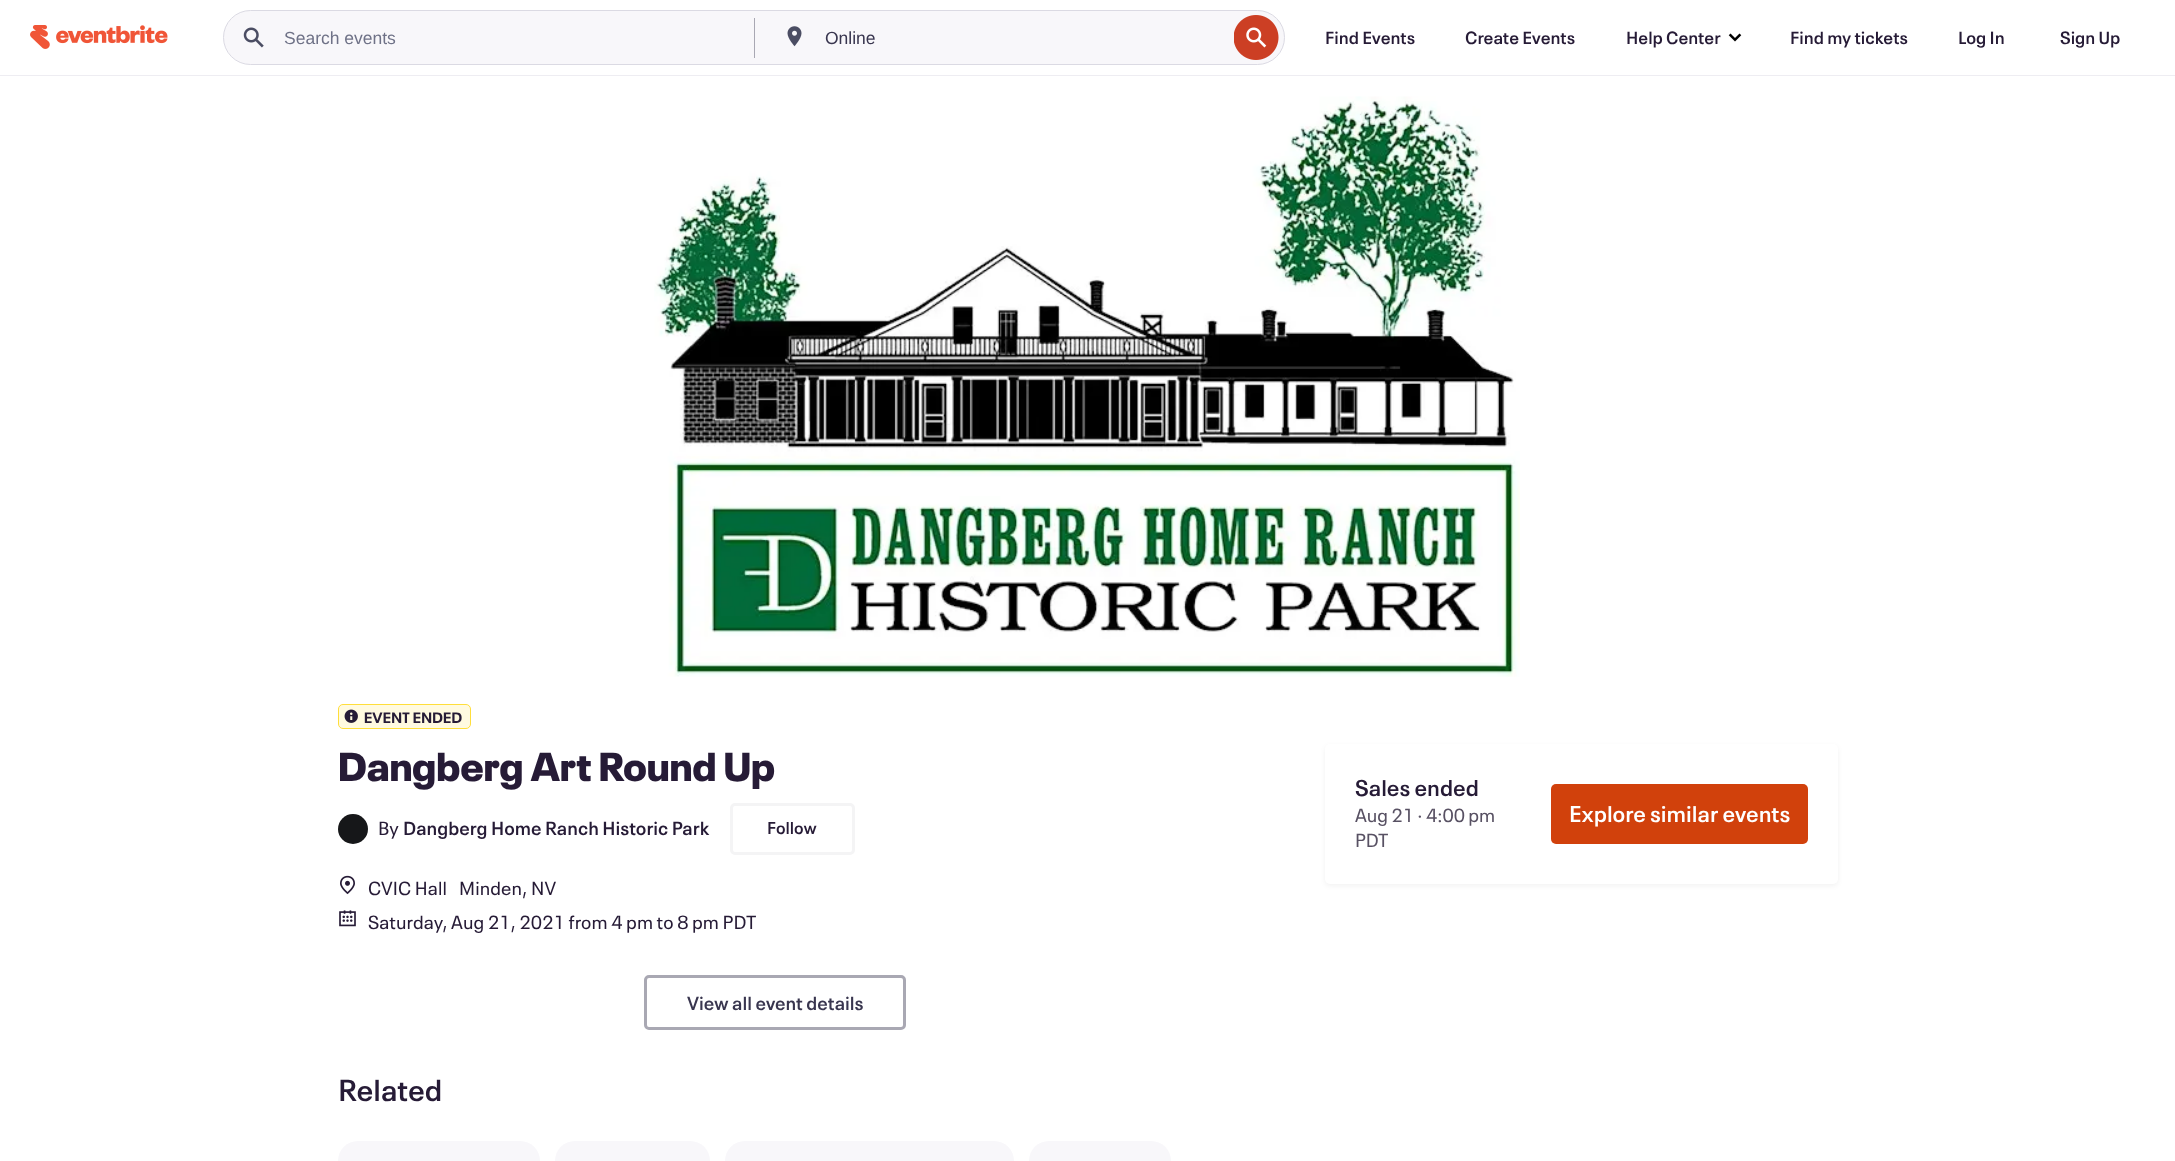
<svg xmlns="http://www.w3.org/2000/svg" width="2175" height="1161">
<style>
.a{font:17.5px Liberation Sans;fill:#6f7287}
.b{font:17.5px Liberation Sans;fill:#39364f}
.c{font:600 17.5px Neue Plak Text;fill:#261b36}
.d{font:bold 15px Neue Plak;letter-spacing:0.25px;fill:#261b36}
.e{font:900 40px Neue Plak;fill:#261b36}
.f{font:18.75px Neue Plak Text;fill:#261b36}
.g{font:600 18.75px Neue Plak Text;fill:#261b36}
.h{font:600 17px Neue Plak Text;fill:#261b36}
.i{font:18.75px Neue Plak Text;letter-spacing:0.1px;fill:#261b36}
.j{font:600 18.75px Neue Plak Text;fill:#39364f}
.k{font:600 30px Neue Plak Text;fill:#261b36}
.l{font:600 22.5px Neue Plak Text;fill:#261b36}
.m{font:18.75px Neue Plak Text;fill:#585163}
.n{font:600 22.5px Neue Plak Text;fill:#fff}
</style>
<rect width="100%" height="100%" fill="#fff"/>
<path fill="#eeedf2" d="M0 75h2175v1H0z"/>
<image href="1.png" x="30" y="25" width="138" height="24"/>
<rect fill="#f8f7fa" stroke="#dbdae3" x="223.5" y="10.5" width="1061" height="54" rx="27"/>
<image href="2.png" x="243" y="27" width="21" height="21"/>
<path fill="#a9a8b3" d="M754 18h1v40H754z"/>
<image href="3.png" x="787" y="26" width="15" height="21"/>
<image href="4.png" x="1234" y="15" width="45" height="45"/>
<image href="5.png" x="1728" y="33" width="14" height="9"/>
<image href="6.png" x="654" y="96" width="866" height="581"/>
<rect fill="#fffae0" stroke="#ffde3b" x="338.5" y="704.5" width="132" height="24" rx="4.5"/>
<image href="7.png" x="344" y="709" width="14" height="14"/>
<circle fill="#161719" cx="353" cy="829" r="15"/>
<rect fill="none" stroke="#f4f4f5" stroke-width="3" x="731.5" y="804.5" width="122" height="49" rx="3.5"/>
<image href="8.png" x="340" y="875" width="15" height="20"/>
<image href="9.png" x="339" y="910" width="17" height="17"/>
<rect fill="none" stroke="#a9a8b3" stroke-width="3" x="645.5" y="976.5" width="259" height="52" rx="3.5"/>
<rect fill="#f8f7fa" x="338" y="1141" width="202" height="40" rx="20"/>
<rect fill="#f8f7fa" x="555" y="1141" width="155" height="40" rx="20"/>
<rect fill="#f8f7fa" x="725" y="1141" width="289" height="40" rx="20"/>
<rect fill="#f8f7fa" x="1029" y="1141" width="142" height="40" rx="20"/>
<rect fill="#0000000d" filter="blur(2.5px)" x="1325" y="746" width="513" height="140" rx="5"/>
<rect fill="#fff" x="1325" y="744" width="513" height="140" rx="5"/>
<rect fill="#d1410c" x="1551" y="784" width="257" height="60" rx="5"/>
<text class="a" x="284" y="44">Search events</text>
<text class="b" x="825" y="44">Online</text>
<text class="c" x="1325" y="44">Find Events</text>
<text class="c" x="1465" y="44">Create Events</text>
<text class="c" x="1626" y="44">Help Center</text>
<text class="c" x="1790" y="44">Find my tickets</text>
<text class="c" x="1958" y="44">Log In</text>
<text class="c" x="2060" y="44">Sign Up</text>
<text class="d" x="364" y="723">EVENT ENDED</text>
<text class="e" x="338" y="781">Dangberg Art Round Up</text>
<text class="f" x="378" y="835">By</text>
<text class="g" x="403" y="835">Dangberg Home Ranch Historic Park</text>
<text class="h" x="767" y="834">Follow</text>
<text class="i" x="368" y="895">CVIC Hall</text>
<text class="i" x="459" y="895">Minden, NV</text>
<text class="i" x="368" y="929">Saturday, Aug 21, 2021 from 4 pm to 8 pm PDT</text>
<text class="j" x="687" y="1010">View all event details</text>
<text class="k" x="338" y="1101">Related</text>
<text class="l" x="1355" y="796">Sales ended</text>
<text class="m" x="1355" y="822">Aug 21 · 4:00 pm</text>
<text class="m" x="1355" y="847">PDT</text>
<text class="n" x="1569" y="822">Explore similar events</text>
</svg>
